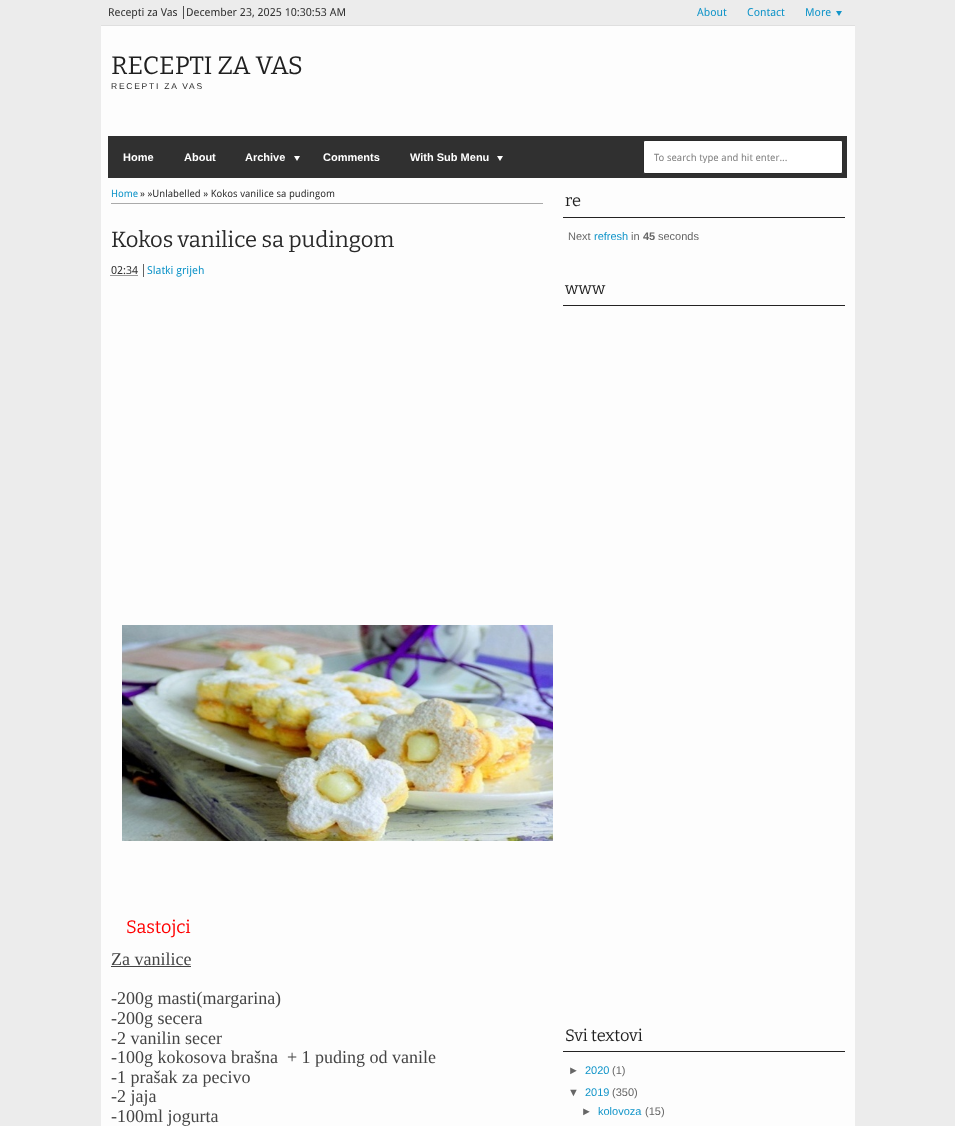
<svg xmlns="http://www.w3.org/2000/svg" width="955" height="1126">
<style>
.a{font:11px Droid Sans;fill:#333}
.b{font:11px Droid Sans;fill:#1295c9}
.c{font:100 25.25px Bitter;fill:#1f1f1f}
.d{font:8.5px Liberation Sans;letter-spacing:1.75px;fill:#292929}
.e{font:bold 11px Liberation Sans;fill:#fff}
.f{font:10px Droid Sans;fill:#838383}
.g{font:10px Droid Sans;fill:#1295c9}
.h{font:10px Droid Sans;fill:#333}
.i{font:100 22px Bitter;fill:#292929}
.j{font:100 18px Bitter;fill:#f00}
.k{font:18px Liberation Serif;fill:#444}
.l{font:100 16.5px Bitter;fill:#1f1f1f}
.m{font:11px Liberation Sans;fill:#666}
.n{font:11px Liberation Sans;fill:#1295c9}
.o{font:bold 11px Liberation Sans;fill:#666}
</style>
<defs>
<clipPath id="clip1"><path d="M654 152h186v11H654z"/></clipPath>
</defs>
<rect width="100%" height="100%" fill="#ececec"/>
<path fill="#fdfdfd" d="M101 26h754v1100H101z"/>
<path fill="#dfdfdf" d="M101 25h754v1H101z"/>
<path fill="#4d4d4d" d="M183 6h1v13H183z"/>
<path fill="#1295c9" d="M836 11h6l-3 5z"/>
<path fill="#303030" d="M108 136h739v42H108z"/>
<path fill="#fff" d="M294 156h6l-3 5z"/>
<path fill="#fff" d="M497 156h6l-3 5z"/>
<rect fill="#fff" stroke="#2b2b2b" x="643.5" y="140.5" width="199" height="33" rx="1.5"/>
<path fill="#aaa" d="M111 203h432v1H111z"/>
<path fill="none" stroke="#333" stroke-dasharray="1 1" d="M110.5 275.5h27"/>
<path fill="#636363" d="M143 264h1v13H143z"/>
<image href="1.png" x="122" y="625" width="431" height="216"/>
<path fill="#444" d="M111 966h80v1H111z"/>
<path fill="#242323" d="M563 217h282v1H563z"/>
<path fill="#242323" d="M563 305h282v1H563z"/>
<path fill="#242323" d="M563 1051h282v1H563z"/>
<text class="a" x="108" y="16">Recepti za Vas</text>
<text class="a" x="186" y="16">December 23, 2025 10:30:53 AM</text>
<text class="b" x="697" y="16">About</text>
<text class="b" x="747" y="16">Contact</text>
<text class="b" x="805" y="16">More</text>
<text class="c" x="111" y="74">RECEPTI ZA VAS</text>
<text class="d" x="111" y="89">RECEPTI ZA VAS</text>
<text class="e" x="123" y="161">Home</text>
<text class="e" x="184" y="161">About</text>
<text class="e" x="245" y="161">Archive</text>
<text class="e" x="323" y="161">Comments</text>
<text class="e" x="410" y="161">With Sub Menu</text>
<g clip-path="url(#clip1)">
<text class="f" x="654" y="161">To search type and hit enter...</text>
</g>
<text class="g" x="111" y="197">Home</text>
<text class="h" x="140" y="197">» »Unlabelled » Kokos vanilice sa pudingom</text>
<text class="i" x="111" y="247">Kokos vanilice sa pudingom</text>
<text class="a" x="111" y="274">02:34</text>
<text class="b" x="147" y="274">Slatki grijeh</text>
<text class="j" x="126" y="933">Sastojci</text>
<text class="k" x="111" y="965">Za vanilice</text>
<text class="k" x="111" y="1004">-200g masti(margarina)</text>
<text class="k" x="111" y="1024">-200g secera</text>
<text class="k" x="111" y="1044">-2 vanilin secer</text>
<text class="k" xml:space="preserve" x="111" y="1063">-100g kokosova brašna  + 1 puding od vanile</text>
<text class="k" x="111" y="1083">-1 prašak za pecivo</text>
<text class="k" x="111" y="1102">-2 jaja</text>
<text class="k" x="111" y="1122">-100ml jogurta</text>
<text class="l" x="565" y="206">re</text>
<text class="m" x="568" y="240">Next</text>
<text class="n" x="594" y="240">refresh</text>
<text class="m" x="631" y="240">in</text>
<text class="o" x="643" y="240">45</text>
<text class="m" x="658" y="240">seconds</text>
<text class="l" x="565" y="294">www</text>
<text class="l" x="565" y="1041">Svi textovi</text>
<text class="m" x="568" y="1074">►</text>
<text class="n" x="585" y="1074">2020</text>
<text class="m" x="612" y="1074">(1)</text>
<text class="m" x="568" y="1096">▼</text>
<text class="n" x="585" y="1096">2019</text>
<text class="m" x="612" y="1096">(350)</text>
<text class="m" x="581" y="1115">►</text>
<text class="n" x="598" y="1115">kolovoza</text>
<text class="m" x="645" y="1115">(15)</text>
</svg>
